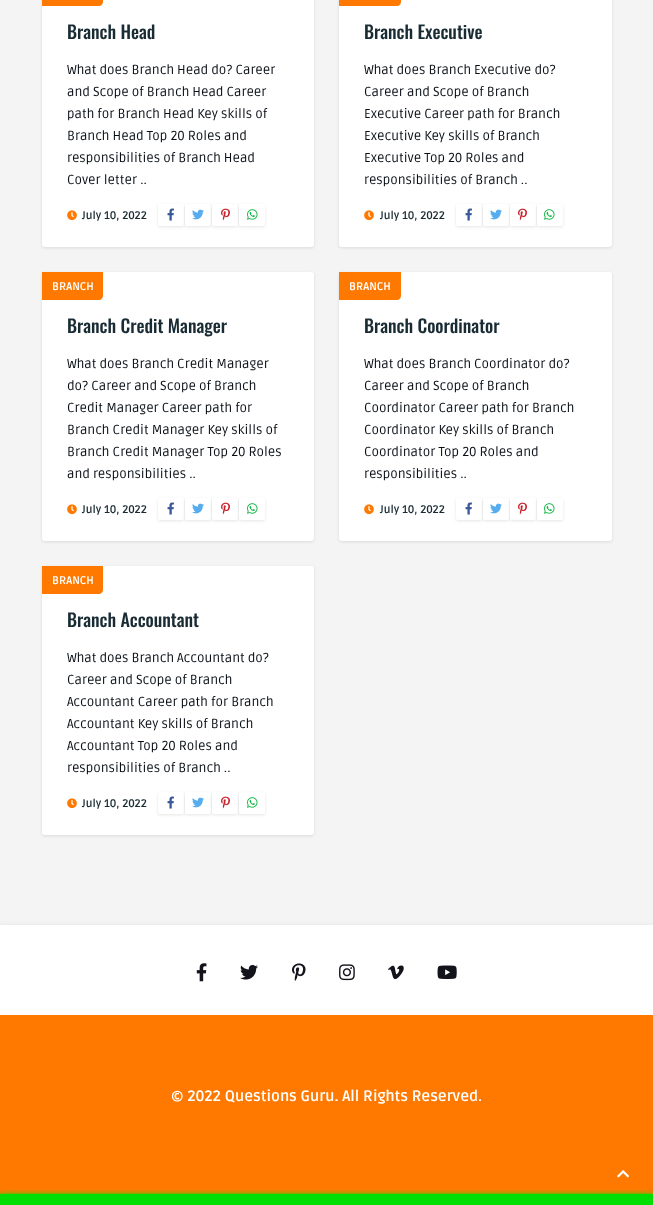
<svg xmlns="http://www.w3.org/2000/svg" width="653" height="1205">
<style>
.a{font:500 18px Oswald;fill:#192b33}
.b{font:13px Ruda;fill:#080e14}
.c{font:bold 11px Ruda;fill:#192b33}
.d{font:bold 11px Ruda;fill:#fff}
.e{font:bold 15px Ruda;fill:#fff}
</style>
<rect width="100%" height="100%" fill="#f4f4f4"/>
<rect fill="#0000001a" filter="blur(1.5px)" x="42" y="-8" width="272" height="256" rx="3"/>
<rect fill="#fff" x="42" y="-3" width="272" height="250" rx="3"/>
<path fill="#ff7900" d="M42-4h61v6c0 2-2 4-4 4h-57z"/>
<image href="1.png" x="67" y="210" width="10" height="11"/>
<rect fill="#0000001a" filter="blur(1.5px)" x="158" y="205" width="26" height="22" rx="2"/>
<rect fill="#fff" x="158" y="204" width="26" height="22" rx="2"/>
<image href="2.png" x="167" y="208" width="7" height="13"/>
<rect fill="#0000001a" filter="blur(1.5px)" x="185" y="205" width="26" height="22" rx="2"/>
<rect fill="#fff" x="185" y="204" width="26" height="22" rx="2"/>
<image href="3.png" x="192" y="209" width="12" height="11"/>
<rect fill="#0000001a" filter="blur(1.5px)" x="212" y="205" width="26" height="22" rx="2"/>
<rect fill="#fff" x="212" y="204" width="26" height="22" rx="2"/>
<image href="4.png" x="221" y="208" width="9" height="13"/>
<rect fill="#0000001a" filter="blur(1.5px)" x="239" y="205" width="26" height="22" rx="2"/>
<rect fill="#fff" x="239" y="204" width="26" height="22" rx="2"/>
<image href="5.png" x="247" y="209" width="11" height="11"/>
<rect fill="#0000001a" filter="blur(1.5px)" x="339" y="-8" width="273" height="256" rx="3"/>
<rect fill="#fff" x="339" y="-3" width="273" height="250" rx="3"/>
<path fill="#ff7900" d="M339-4h62v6c0 2-2 4-4 4h-58z"/>
<image href="1.png" x="364" y="210" width="10" height="11"/>
<rect fill="#0000001a" filter="blur(1.5px)" x="456" y="205" width="26" height="22" rx="2"/>
<rect fill="#fff" x="456" y="204" width="26" height="22" rx="2"/>
<image href="2.png" x="465" y="208" width="7" height="13"/>
<rect fill="#0000001a" filter="blur(1.5px)" x="483" y="205" width="26" height="22" rx="2"/>
<rect fill="#fff" x="483" y="204" width="26" height="22" rx="2"/>
<image href="3.png" x="490" y="209" width="12" height="11"/>
<rect fill="#0000001a" filter="blur(1.5px)" x="510" y="205" width="26" height="22" rx="2"/>
<rect fill="#fff" x="510" y="204" width="26" height="22" rx="2"/>
<image href="4.png" x="518" y="208" width="9" height="13"/>
<rect fill="#0000001a" filter="blur(1.5px)" x="537" y="205" width="26" height="22" rx="2"/>
<rect fill="#fff" x="537" y="204" width="26" height="22" rx="2"/>
<image href="5.png" x="544" y="209" width="11" height="11"/>
<rect fill="#0000001a" filter="blur(1.5px)" x="42" y="273" width="272" height="269" rx="3"/>
<rect fill="#fff" x="42" y="272" width="272" height="269" rx="3"/>
<path fill="#ff7900" d="M42 272h61v24c0 2-2 4-4 4h-57z"/>
<image href="1.png" x="67" y="504" width="10" height="11"/>
<rect fill="#0000001a" filter="blur(1.5px)" x="158" y="499" width="26" height="22" rx="2"/>
<rect fill="#fff" x="158" y="498" width="26" height="22" rx="2"/>
<image href="2.png" x="167" y="502" width="7" height="13"/>
<rect fill="#0000001a" filter="blur(1.5px)" x="185" y="499" width="26" height="22" rx="2"/>
<rect fill="#fff" x="185" y="498" width="26" height="22" rx="2"/>
<image href="3.png" x="192" y="503" width="12" height="11"/>
<rect fill="#0000001a" filter="blur(1.5px)" x="212" y="499" width="26" height="22" rx="2"/>
<rect fill="#fff" x="212" y="498" width="26" height="22" rx="2"/>
<image href="4.png" x="221" y="502" width="9" height="13"/>
<rect fill="#0000001a" filter="blur(1.5px)" x="239" y="499" width="26" height="22" rx="2"/>
<rect fill="#fff" x="239" y="498" width="26" height="22" rx="2"/>
<image href="5.png" x="247" y="503" width="11" height="11"/>
<rect fill="#0000001a" filter="blur(1.5px)" x="339" y="273" width="273" height="269" rx="3"/>
<rect fill="#fff" x="339" y="272" width="273" height="269" rx="3"/>
<path fill="#ff7900" d="M339 272h62v24c0 2-2 4-4 4h-58z"/>
<image href="1.png" x="364" y="504" width="10" height="11"/>
<rect fill="#0000001a" filter="blur(1.5px)" x="456" y="499" width="26" height="22" rx="2"/>
<rect fill="#fff" x="456" y="498" width="26" height="22" rx="2"/>
<image href="2.png" x="465" y="502" width="7" height="13"/>
<rect fill="#0000001a" filter="blur(1.5px)" x="483" y="499" width="26" height="22" rx="2"/>
<rect fill="#fff" x="483" y="498" width="26" height="22" rx="2"/>
<image href="3.png" x="490" y="503" width="12" height="11"/>
<rect fill="#0000001a" filter="blur(1.5px)" x="510" y="499" width="26" height="22" rx="2"/>
<rect fill="#fff" x="510" y="498" width="26" height="22" rx="2"/>
<image href="4.png" x="518" y="502" width="9" height="13"/>
<rect fill="#0000001a" filter="blur(1.5px)" x="537" y="499" width="26" height="22" rx="2"/>
<rect fill="#fff" x="537" y="498" width="26" height="22" rx="2"/>
<image href="5.png" x="544" y="503" width="11" height="11"/>
<rect fill="#0000001a" filter="blur(1.5px)" x="42" y="567" width="272" height="269" rx="3"/>
<rect fill="#fff" x="42" y="566" width="272" height="269" rx="3"/>
<path fill="#ff7900" d="M42 566h61v24c0 2-2 4-4 4h-57z"/>
<image href="1.png" x="67" y="798" width="10" height="11"/>
<rect fill="#0000001a" filter="blur(1.5px)" x="158" y="793" width="26" height="22" rx="2"/>
<rect fill="#fff" x="158" y="792" width="26" height="22" rx="2"/>
<image href="2.png" x="167" y="796" width="7" height="13"/>
<rect fill="#0000001a" filter="blur(1.5px)" x="185" y="793" width="26" height="22" rx="2"/>
<rect fill="#fff" x="185" y="792" width="26" height="22" rx="2"/>
<image href="3.png" x="192" y="797" width="12" height="11"/>
<rect fill="#0000001a" filter="blur(1.5px)" x="212" y="793" width="26" height="22" rx="2"/>
<rect fill="#fff" x="212" y="792" width="26" height="22" rx="2"/>
<image href="4.png" x="221" y="796" width="9" height="13"/>
<rect fill="#0000001a" filter="blur(1.5px)" x="239" y="793" width="26" height="22" rx="2"/>
<rect fill="#fff" x="239" y="792" width="26" height="22" rx="2"/>
<image href="5.png" x="247" y="797" width="11" height="11"/>
<path fill="#0000001a" filter="blur(2.5px)" d="M0 926h653v90H0z"/>
<path fill="#fff" d="M0 925h653v90H0z"/>
<image href="6.png" x="196" y="963" width="11" height="19"/>
<image href="7.png" x="240" y="964" width="18" height="16"/>
<image href="8.png" x="292" y="963" width="14" height="18"/>
<image href="9.png" x="339" y="964" width="16" height="17"/>
<image href="10.png" x="388" y="965" width="16" height="15"/>
<image href="11.png" x="437" y="965" width="20" height="14"/>
<path fill="#ff7900" d="M0 1015h653v179H0z"/>
<image href="12.png" x="617" y="1170" width="12" height="8"/>
<path fill="#00de03" filter="blur(2.5px)" d="M0 1194h653v11H0z"/>
<path fill="#00de03" d="M0 1194h653v11H0z"/>
<text class="a" x="67" y="39">Branch Head</text>
<text class="b" x="67" y="74">What does Branch Head do? Career</text>
<text class="b" x="67" y="96">and Scope of Branch Head Career</text>
<text class="b" x="67" y="118">path for Branch Head Key skills of</text>
<text class="b" x="67" y="140">Branch Head Top 20 Roles and</text>
<text class="b" x="67" y="162">responsibilities of Branch Head</text>
<text class="b" x="67" y="184">Cover letter ..</text>
<text class="c" x="82" y="219">July 10, 2022</text>
<text class="a" x="364" y="39">Branch Executive</text>
<text class="b" x="364" y="74">What does Branch Executive do?</text>
<text class="b" x="364" y="96">Career and Scope of Branch</text>
<text class="b" x="364" y="118">Executive Career path for Branch</text>
<text class="b" x="364" y="140">Executive Key skills of Branch</text>
<text class="b" x="364" y="162">Executive Top 20 Roles and</text>
<text class="b" x="364" y="184">responsibilities of Branch ..</text>
<text class="c" x="380" y="219">July 10, 2022</text>
<text class="d" x="52" y="290">BRANCH</text>
<text class="a" x="67" y="333">Branch Credit Manager</text>
<text class="b" x="67" y="368">What does Branch Credit Manager</text>
<text class="b" x="67" y="390">do? Career and Scope of Branch</text>
<text class="b" x="67" y="412">Credit Manager Career path for</text>
<text class="b" x="67" y="434">Branch Credit Manager Key skills of</text>
<text class="b" x="67" y="456">Branch Credit Manager Top 20 Roles</text>
<text class="b" x="67" y="478">and responsibilities ..</text>
<text class="c" x="82" y="513">July 10, 2022</text>
<text class="d" x="349" y="290">BRANCH</text>
<text class="a" x="364" y="333">Branch Coordinator</text>
<text class="b" x="364" y="368">What does Branch Coordinator do?</text>
<text class="b" x="364" y="390">Career and Scope of Branch</text>
<text class="b" x="364" y="412">Coordinator Career path for Branch</text>
<text class="b" x="364" y="434">Coordinator Key skills of Branch</text>
<text class="b" x="364" y="456">Coordinator Top 20 Roles and</text>
<text class="b" x="364" y="478">responsibilities ..</text>
<text class="c" x="380" y="513">July 10, 2022</text>
<text class="d" x="52" y="584">BRANCH</text>
<text class="a" x="67" y="627">Branch Accountant</text>
<text class="b" x="67" y="662">What does Branch Accountant do?</text>
<text class="b" x="67" y="684">Career and Scope of Branch</text>
<text class="b" x="67" y="706">Accountant Career path for Branch</text>
<text class="b" x="67" y="728">Accountant Key skills of Branch</text>
<text class="b" x="67" y="750">Accountant Top 20 Roles and</text>
<text class="b" x="67" y="772">responsibilities of Branch ..</text>
<text class="c" x="82" y="807">July 10, 2022</text>
<text class="e" x="171" y="1101">© 2022 Questions Guru. All Rights Reserved.</text>
</svg>
